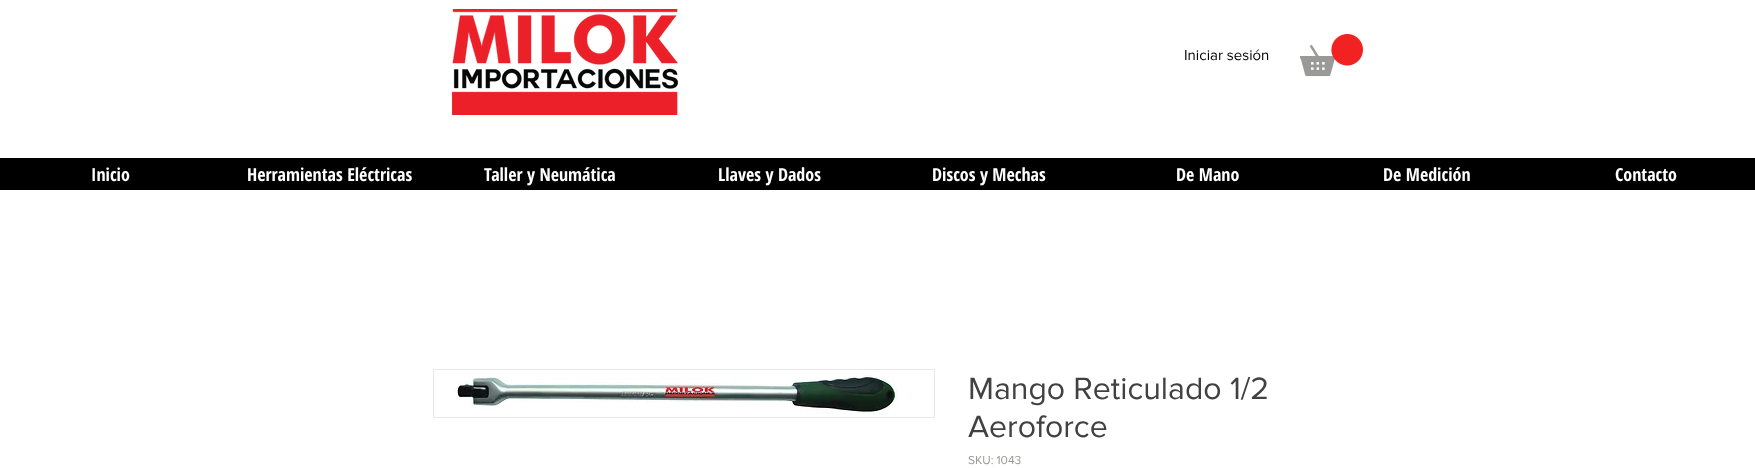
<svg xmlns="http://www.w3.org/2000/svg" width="1755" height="468">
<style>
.a{font:15px 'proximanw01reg';fill:#000}
.b{font:bold 18px Open Sans Condensed;fill:#fff}
.c{font:32px 'proximanw01reg';fill:#414141}
.d{font:12px 'proximanw01reg';fill:#999997}
</style>
<rect width="100%" height="100%" fill="#fff"/>
<image href="1.png" x="452" y="9" width="226" height="106"/>
<image href="2.png" x="1300" y="34" width="63" height="43"/>
<path fill="#000" d="M0 158h1755v32H0z"/>
<path fill="none" stroke="#e8e6e6" d="M433.5 369.5h501v48H433.5z"/>
<image href="3.png" x="454" y="374" width="444" height="40"/>
<text class="a" x="1184" y="60">Iniciar sesión</text>
<text class="b" x="91" y="181">Inicio</text>
<text class="b" x="247" y="181">Herramientas Eléctricas</text>
<text class="b" x="484" y="181">Taller y Neumática</text>
<text class="b" x="718" y="181">Llaves y Dados</text>
<text class="b" x="932" y="181">Discos y Mechas</text>
<text class="b" x="1176" y="181">De Mano</text>
<text class="b" x="1383" y="181">De Medición</text>
<text class="b" x="1615" y="181">Contacto</text>
<text class="c" x="968" y="399">Mango Reticulado 1/2</text>
<text class="c" x="968" y="437">Aeroforce</text>
<text class="d" x="968" y="464">SKU: 1043</text>
</svg>
